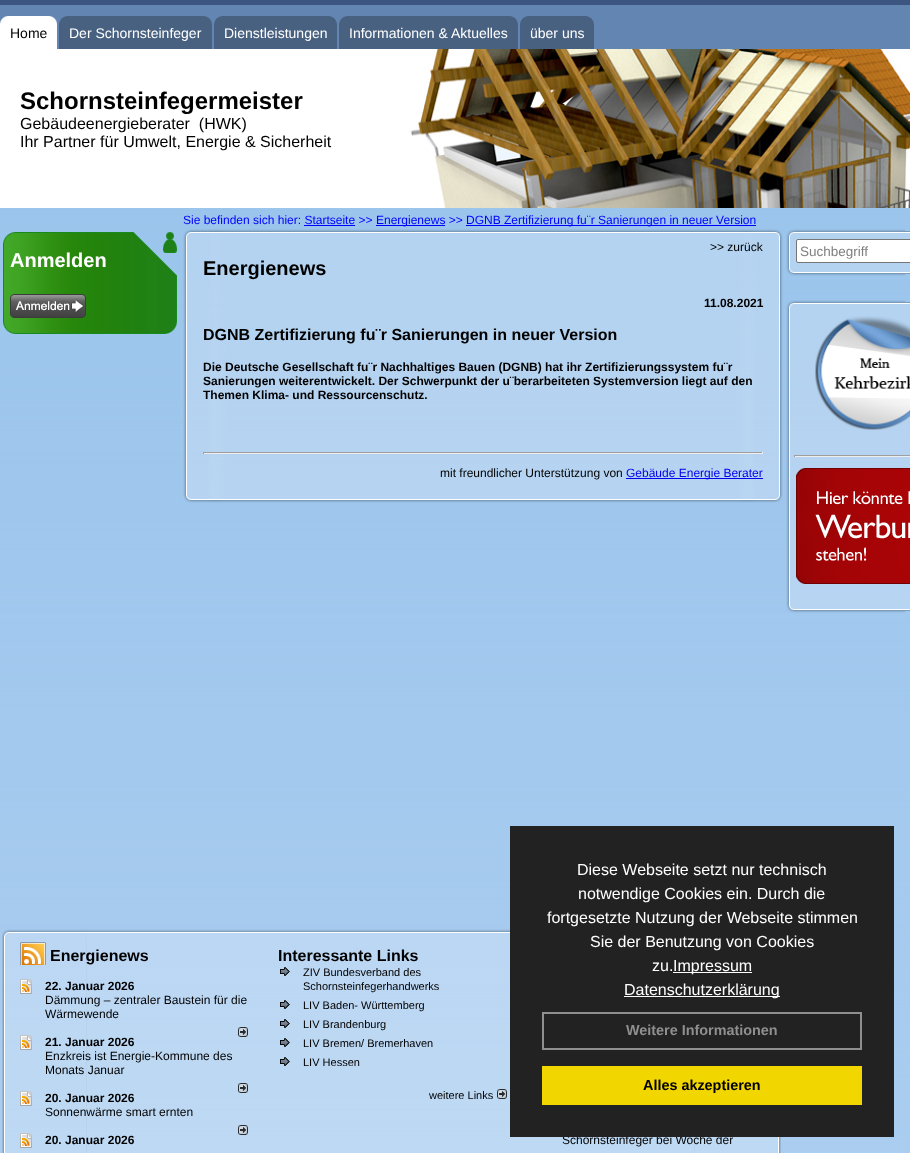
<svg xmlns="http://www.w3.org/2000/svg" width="910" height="1153">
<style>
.a{font:14px Liberation Sans;fill:#000}
.b{font:14px Liberation Sans;fill:#fff}
.c{font:bold 24px Liberation Sans;fill:#000}
.d{font:16px Liberation Sans;fill:#000}
.e{font:12px Liberation Sans;fill:#00f}
.f{font:bold 20px Liberation Sans;fill:#fff}
.g{font:12px Liberation Sans;fill:#000}
.h{font:bold 20px Liberation Sans;fill:#000}
.i{font:bold 12px Liberation Sans;fill:#000}
.j{font:bold 16px Liberation Sans;fill:#000}
.k{font:12px Liberation Sans;fill:#00e}
.l{font:13.5px Liberation Sans;fill:#808080}
.m{font:11px Liberation Sans;fill:#000}
.n{font:16px Liberation Sans;fill:#fff}
.o{font:bold 14.4px Liberation Sans;fill:#8f8f8f}
.p{font:bold 14.4px Liberation Sans;fill:#000}
</style>
<rect width="100%" height="100%" fill="#fff"/>
<image href="1.png" x="0" y="208" width="910" height="945"/>
<image href="2.png" x="0" y="0" width="910" height="49"/>
<image href="3.png" x="0" y="16" width="10" height="33"/>
<path fill="#fff" d="M10 16h37v33H10z"/>
<image href="4.png" x="47" y="16" width="10" height="33"/>
<image href="5.png" x="59" y="16" width="10" height="33"/>
<path fill="#486181" d="M69 16h133v33H69z"/>
<image href="6.png" x="202" y="16" width="10" height="33"/>
<image href="5.png" x="214" y="16" width="10" height="33"/>
<path fill="#486181" d="M224 16h103v33H224z"/>
<image href="6.png" x="327" y="16" width="10" height="33"/>
<image href="5.png" x="339" y="16" width="10" height="33"/>
<path fill="#486181" d="M349 16h159v33H349z"/>
<image href="6.png" x="508" y="16" width="10" height="33"/>
<image href="5.png" x="520" y="16" width="10" height="33"/>
<path fill="#486181" d="M530 16h54v33H530z"/>
<image href="6.png" x="584" y="16" width="10" height="33"/>
<image href="7.png" x="0" y="49" width="910" height="159"/>
<path fill="#00f" d="M376 225h69v1H376z"/>
<path fill="#00f" d="M466 225h290v1H466z"/>
<path fill="#00f" d="M304 225h51v1H304z"/>
<image href="8.png" x="3" y="232" width="174" height="45"/>
<image href="9.png" x="3" y="277" width="174" height="43"/>
<image href="10.png" x="10" y="294" width="76" height="24"/>
<image href="11.png" x="3" y="320" width="174" height="14"/>
<image href="12.png" x="183" y="229" width="600" height="10"/>
<image href="13.png" x="183" y="239" width="600" height="254"/>
<path fill="#9f9f9f" d="M203 452h560v1H203z"/>
<path fill="#eee" d="M762 452h1v2H762z"/>
<path fill="#eee" d="M203 453h560v1H203z"/>
<path fill="#9f9f9f" d="M203 452h1v2H203z"/>
<path fill="#00e" d="M626 478h137v1H626z"/>
<image href="14.png" x="183" y="493" width="600" height="10"/>
<image href="15.png" x="786" y="229" width="124" height="10"/>
<image href="16.png" x="786" y="239" width="124" height="27"/>
<rect fill="#fff" stroke="#767676" x="796.5" y="239.5" width="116" height="23" rx="1.5"/>
<image href="17.png" x="786" y="266" width="124" height="10"/>
<image href="18.png" x="786" y="300" width="124" height="10"/>
<image href="19.png" x="786" y="310" width="124" height="293"/>
<image href="20.png" x="815" y="316" width="95" height="114"/>
<path fill="#9f9f9f" d="M794 455h116v1H794z"/>
<path fill="#eee" d="M794 456h116v1H794z"/>
<path fill="#9f9f9f" d="M794 455h1v2H794z"/>
<image href="21.png" x="796" y="468" width="114" height="116"/>
<image href="22.png" x="786" y="603" width="124" height="10"/>
<image href="23.png" x="2" y="929" width="508" height="13"/>
<image href="24.png" x="2" y="942" width="779" height="211"/>
<image href="25.png" x="20" y="942" width="26" height="23"/>
<image href="26.png" x="20" y="979" width="12" height="15"/>
<image href="27.png" x="238" y="1027" width="10" height="10"/>
<image href="28.png" x="20" y="1035" width="12" height="15"/>
<image href="29.png" x="238" y="1083" width="10" height="10"/>
<image href="30.png" x="20" y="1091" width="12" height="15"/>
<image href="31.png" x="238" y="1125" width="10" height="10"/>
<image href="32.png" x="20" y="1133" width="12" height="15"/>
<image href="33.png" x="280" y="967" width="10" height="9"/>
<image href="34.png" x="280" y="1000" width="10" height="9"/>
<image href="35.png" x="280" y="1019" width="10" height="9"/>
<image href="36.png" x="280" y="1038" width="10" height="9"/>
<image href="37.png" x="280" y="1057" width="10" height="9"/>
<image href="38.png" x="497" y="1089" width="10" height="10"/>
<text class="a" x="10" y="38">Home</text>
<text class="b" x="69" y="38">Der Schornsteinfeger</text>
<text class="b" x="224" y="38">Dienstleistungen</text>
<text class="b" x="349" y="38">Informationen &amp; Aktuelles</text>
<text class="b" x="530" y="38">über uns</text>
<text class="c" x="20" y="109">Schornsteinfegermeister</text>
<text class="d" xml:space="preserve" x="20" y="129">Gebäudeenergieberater  (HWK)</text>
<text class="d" x="20" y="147">Ihr Partner für Umwelt, Energie &amp; Sicherheit</text>
<text class="e" x="183" y="224">Sie befinden sich hier: Startseite &gt;&gt;</text>
<text class="e" x="376" y="224">Energienews &gt;&gt;</text>
<text class="e" x="466" y="224">DGNB Zertifizierung fu¨r Sanierungen in neuer Version</text>
<text class="f" x="10" y="267">Anmelden</text>
<text class="g" x="710" y="251">&gt;&gt; zurück</text>
<text class="h" x="203" y="275">Energienews</text>
<text class="i" x="704" y="307">11.08.2021</text>
<text class="j" x="203" y="340">DGNB Zertifizierung fu¨r Sanierungen in neuer Version</text>
<text class="i" x="203" y="371">Die Deutsche Gesellschaft fu¨r Nachhaltiges Bauen (DGNB) hat ihr Zertifizierungssystem fu¨r</text>
<text class="i" x="203" y="385">Sanierungen weiterentwickelt. Der Schwerpunkt der u¨berarbeiteten Systemversion liegt auf den</text>
<text class="i" x="203" y="399">Themen Klima- und Ressourcenschutz.</text>
<text class="g" x="440" y="477">mit freundlicher Unterstützung von</text>
<text class="k" x="626" y="477">Gebäude Energie Berater</text>
<text class="l" x="800" y="256">Suchbegriff</text>
<text class="j" x="50" y="961">Energienews</text>
<text class="i" x="45" y="990">22. Januar 2026</text>
<text class="g" x="45" y="1004">Dämmung – zentraler Baustein für die</text>
<text class="g" x="45" y="1018">Wärmewende</text>
<text class="i" x="45" y="1046">21. Januar 2026</text>
<text class="g" x="45" y="1060">Enzkreis ist Energie-Kommune des</text>
<text class="g" x="45" y="1074">Monats Januar</text>
<text class="i" x="45" y="1102">20. Januar 2026</text>
<text class="g" x="45" y="1116">Sonnenwärme smart ernten</text>
<text class="i" x="45" y="1144">20. Januar 2026</text>
<text class="j" x="278" y="961">Interessante Links</text>
<text class="m" x="303" y="976">ZIV Bundesverband des</text>
<text class="m" x="303" y="990">Schornsteinfegerhandwerks</text>
<text class="m" x="303" y="1009">LIV Baden- Württemberg</text>
<text class="m" x="303" y="1028">LIV Brandenburg</text>
<text class="m" x="303" y="1047">LIV Bremen/ Bremerhaven</text>
<text class="m" x="303" y="1066">LIV Hessen</text>
<text class="m" x="429" y="1099">weitere Links</text>
<text class="g" x="562" y="1144">Schornsteinfeger bei Woche der</text>
<path fill="#222" d="M510 826h384v311H510z"/>
<text class="n" x="577" y="875">Diese Webseite setzt nur technisch</text>
<text class="n" x="578" y="899">notwendige Cookies ein. Durch die</text>
<text class="n" x="547" y="923">fortgesetzte Nutzung der Webseite stimmen</text>
<text class="n" x="590" y="947">Sie der Benutzung von Cookies</text>
<text class="n" x="652" y="971">zu.</text>
<path fill="#fff" d="M673 972h79v1H673z"/>
<text class="n" x="673" y="971">Impressum</text>
<path fill="#fff" d="M624 996h156v1H624z"/>
<text class="n" x="624" y="995">Datenschutzerklärung</text>
<path fill="none" stroke="#8f8f8f" stroke-width="2" d="M543 1013h318v36H543z"/>
<text class="o" x="626" y="1035">Weitere Informationen</text>
<path fill="#f1d600" d="M542 1066h320v39H542z"/>
<text class="p" x="643" y="1090">Alles akzeptieren</text>
</svg>
